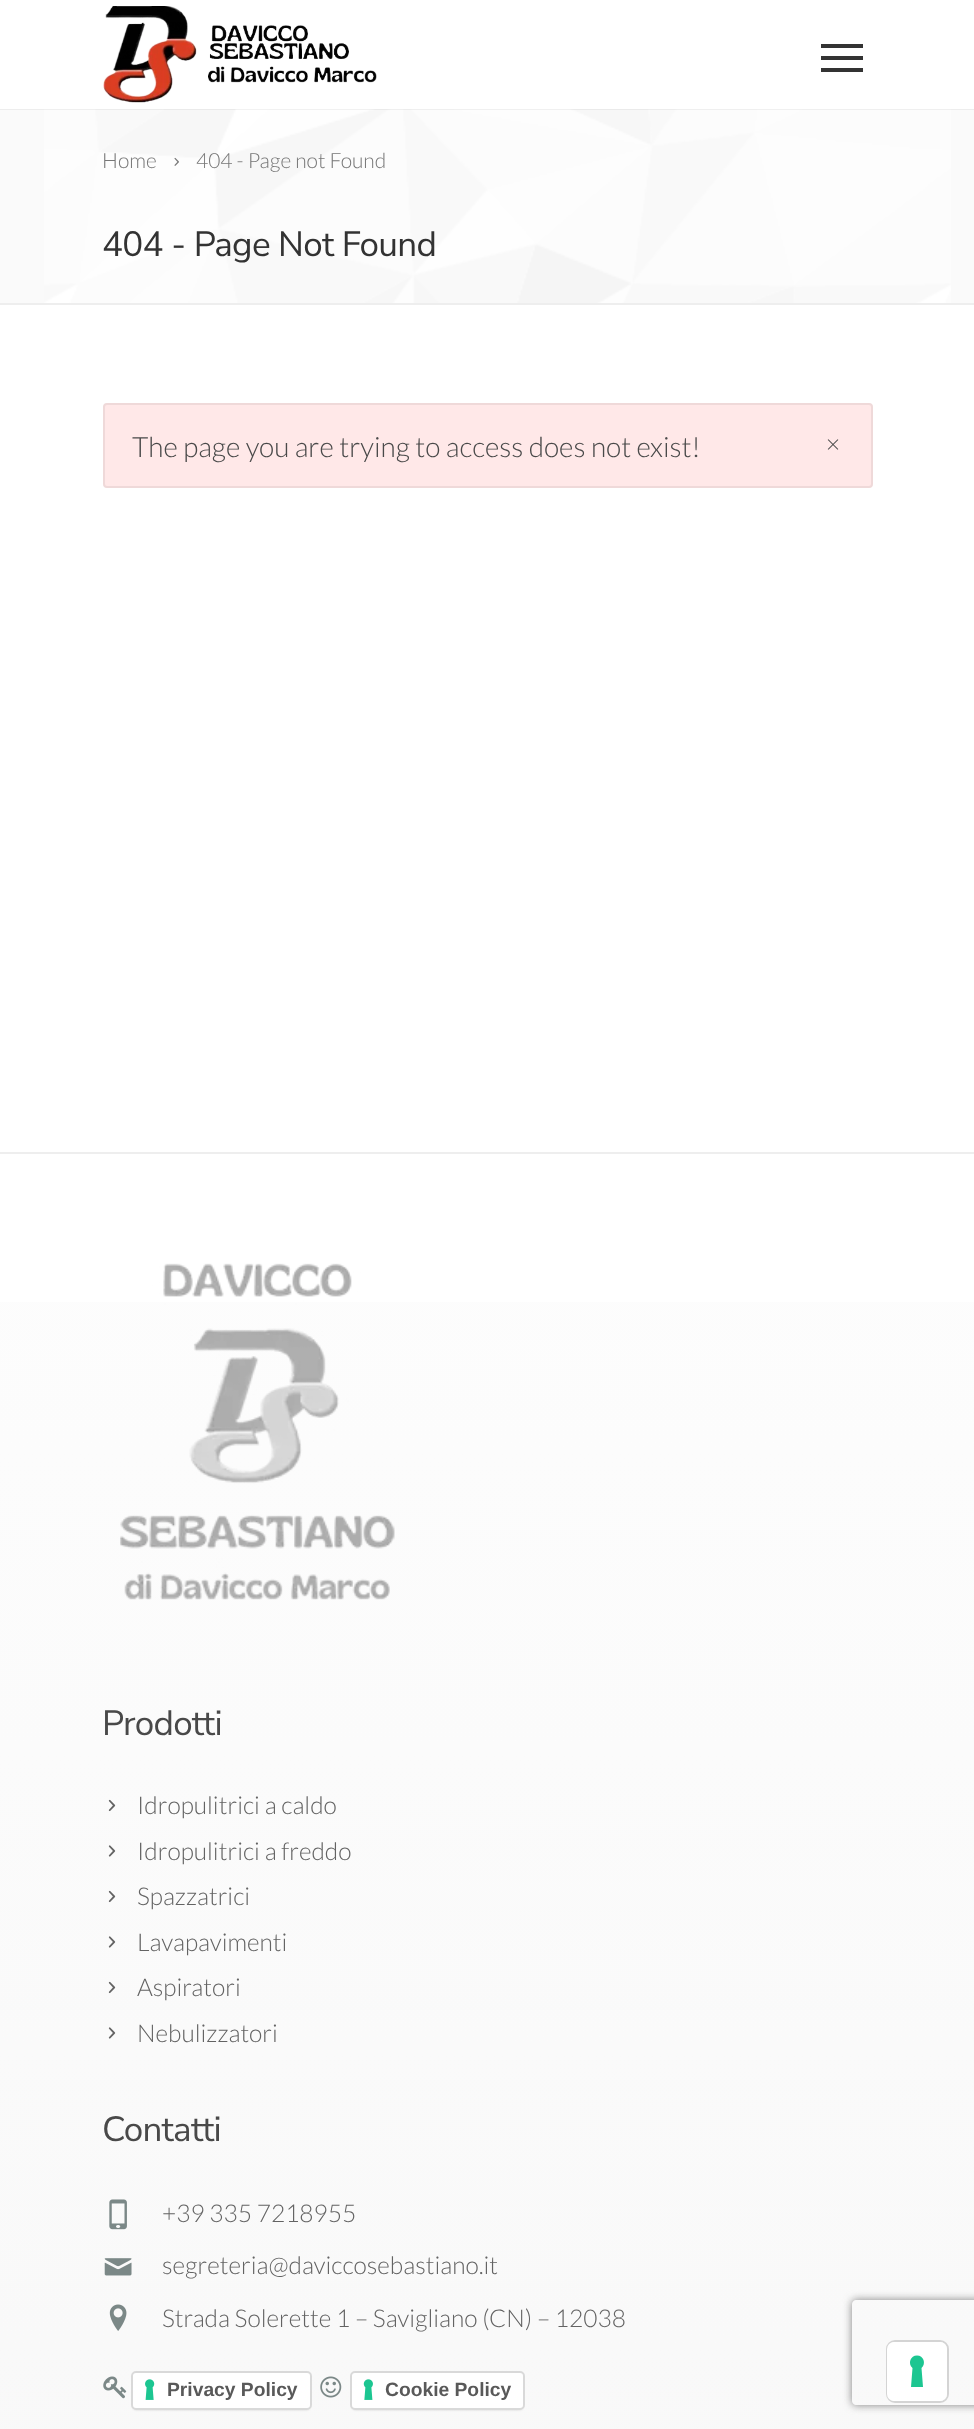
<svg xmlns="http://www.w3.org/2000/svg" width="974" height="2429">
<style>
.a{font:300 21px Lato;fill:#777}
.b{font:35px Nunito Sans;letter-spacing:-0.7px;fill:#333}
.c{font:300 28px Lato;fill:#494949}
.d{font:35px Nunito Sans;letter-spacing:-0.7px;fill:#494949}
.e{font:300 24.5px Lato;fill:#636363}
.f{font:bold 19.25px Liberation Sans;fill:#595959}
</style>
<defs>
<linearGradient id="g1" gradientUnits="userSpaceOnUse" x1="487" y1="1153" x2="487" y2="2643"><stop offset="0" stop-color="#fdfdfd"/><stop offset="1" stop-color="#f8f8f8"/></linearGradient>
<clipPath id="clip1"><path d="M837 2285h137v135h-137zm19 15h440c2 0 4 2 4 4v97c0 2-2 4-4 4h-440c-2 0-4-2-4-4v-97c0-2 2-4 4-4z" clip-rule="evenodd"/></clipPath>
</defs>
<rect width="100%" height="100%" fill="#fff"/>
<path fill="#fafafa" d="M0 109h974v194H0z"/>
<image href="2.png" x="44" y="109" width="907" height="194"/>
<path fill="none" stroke="#0000000d" stroke-width="2" d="M-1 -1h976v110H-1z"/>
<path fill="#fff" d="M0 108h974v1H0z"/>
<image href="1.png" x="103" y="6" width="274" height="97"/>
<path fill="#333" d="M821 44h42v4H821z"/>
<path fill="#333" d="M821 56h42v4H821z"/>
<path fill="#333" d="M821 68h42v4H821z"/>
<path fill="#eee" d="M0 303h974v2H0z"/>
<image href="3.png" x="174" y="157" width="5" height="9"/>
<rect fill="#ffe8e8" stroke="#efd9d9" stroke-width="2" x="104" y="404" width="768" height="83" rx="3"/>
<image href="4.png" x="827" y="439" width="12" height="11"/>
<path fill="url(#g1)" d="M0 1302h974v1127H0z"/>
<path fill="#eee" d="M0 1152h974v2H0z"/>
<image href="5.png" x="120" y="1263" width="275" height="337"/>
<image href="6.png" x="108" y="1799" width="8" height="13"/>
<image href="7.png" x="108" y="1845" width="8" height="12"/>
<image href="8.png" x="108" y="1890" width="8" height="13"/>
<image href="9.png" x="108" y="1936" width="8" height="12"/>
<image href="10.png" x="108" y="1981" width="8" height="13"/>
<image href="9.png" x="108" y="2027" width="8" height="12"/>
<image href="11.png" x="109" y="2199" width="18" height="31"/>
<image href="12.png" x="104" y="2258" width="28" height="18"/>
<image href="13.png" x="109" y="2304" width="18" height="27"/>
<image href="14.png" x="103" y="2376" width="24" height="23"/>
<rect fill="#00000026" filter="blur(1px)" x="133" y="2375" width="177" height="35" rx="4"/>
<rect fill="#fff" x="131" y="2371" width="181" height="39" rx="5"/>
<image href="15.png" x="145" y="2379" width="10" height="21"/>
<rect fill="none" stroke="#00000026" stroke-width="2" x="132" y="2372" width="179" height="37" rx="4"/>
<image href="16.png" x="320" y="2376" width="22" height="22"/>
<rect fill="#00000026" filter="blur(1px)" x="352" y="2375" width="171" height="35" rx="4"/>
<rect fill="#fff" x="350" y="2371" width="175" height="39" rx="5"/>
<image href="17.png" x="363" y="2379" width="10" height="21"/>
<rect fill="none" stroke="#00000026" stroke-width="2" x="351" y="2372" width="173" height="37" rx="4"/>
<g clip-path="url(#clip1)">
<rect fill="#808080" filter="blur(4.5px)" x="852" y="2300" width="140" height="105" rx="4"/>
</g>
<rect fill="none" stroke="#d4d4d4" stroke-width="2" x="887" y="2341" width="61" height="61" rx="8"/>
<rect fill="#fff" x="887" y="2342" width="60" height="59" rx="7"/>
<path fill="#1cc691" fill-rule="evenodd" d="M917 2355.5c6.5 0 9.5 8 4.5 12.5l1.5 19h-12l1.5-19c-5-4.5-2-12.5 4.5-12.5z"/>
<text class="a" x="102" y="168">Home</text>
<text class="a" x="196" y="168">404 - Page not Found</text>
<text class="b" x="102" y="256">404 - Page Not Found</text>
<text class="c" x="132" y="457">The page you are trying to access does not exist!</text>
<text class="d" x="102" y="1735">Prodotti</text>
<text class="e" x="137" y="1814">Idropulitrici a caldo</text>
<text class="e" x="137" y="1860">Idropulitrici a freddo</text>
<text class="e" x="137" y="1905">Spazzatrici</text>
<text class="e" x="137" y="1951">Lavapavimenti</text>
<text class="e" x="137" y="1996">Aspiratori</text>
<text class="e" x="137" y="2042">Nebulizzatori</text>
<text class="d" x="102" y="2141">Contatti</text>
<text class="e" x="162" y="2222">+39 335 7218955</text>
<text class="e" x="162" y="2274">segreteria@daviccosebastiano.it</text>
<text class="e" x="162" y="2327">Strada Solerette 1 – Savigliano (CN) – 12038</text>
<text class="f" x="167" y="2396">Privacy Policy</text>
<text class="f" x="385" y="2396">Cookie Policy</text>
</svg>
